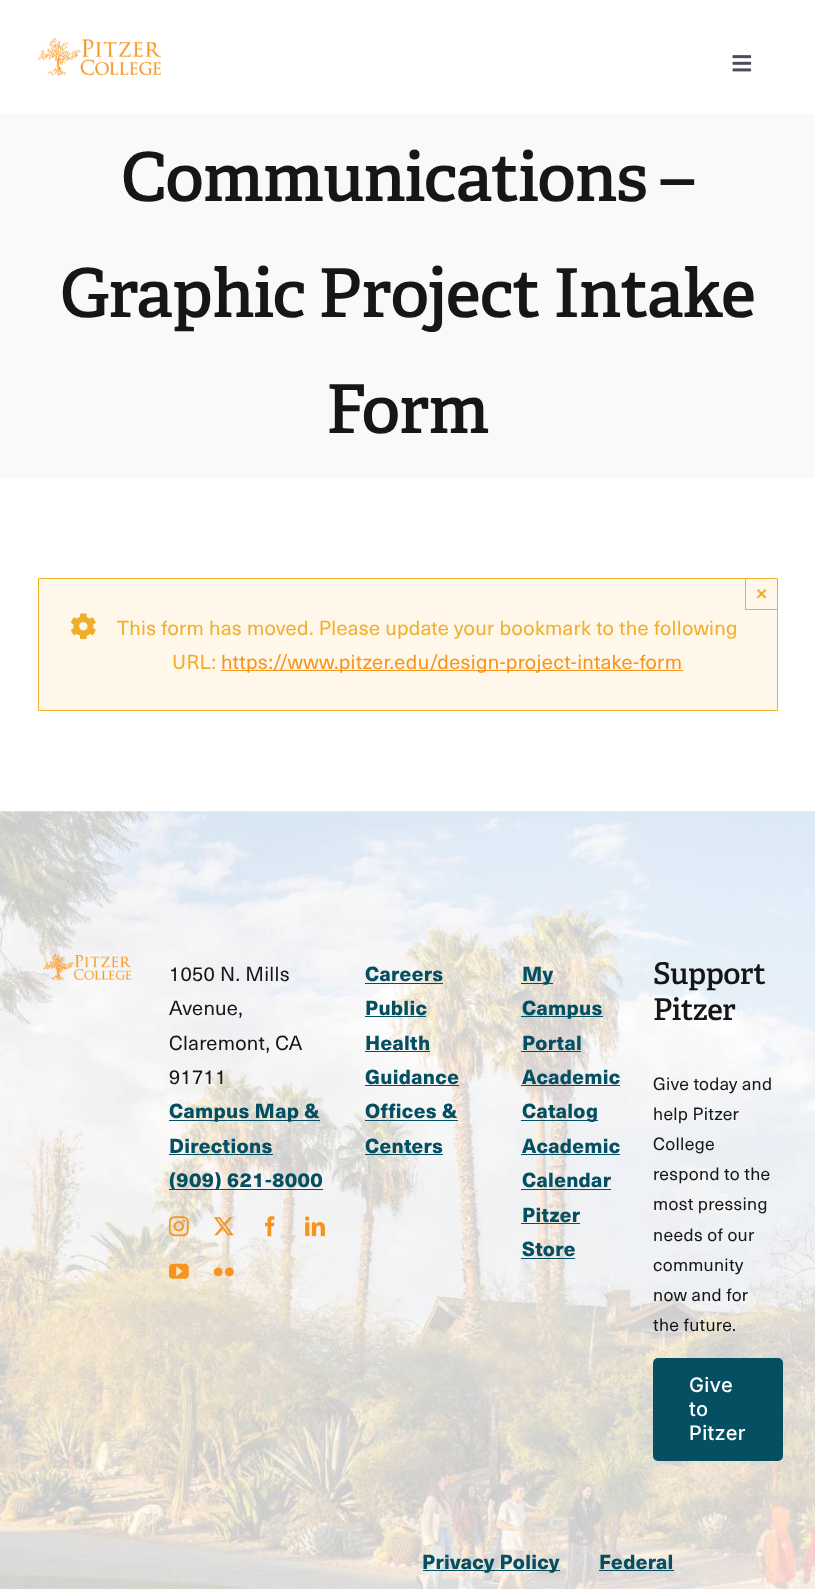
<svg xmlns="http://www.w3.org/2000/svg" width="815" height="1589">
<style>
.a{font:600 67.5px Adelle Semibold;letter-spacing:-1px;fill:#141617}
.b{font:bold 19px Liberation Sans;fill:#f1ae2a}
.c{font:20px 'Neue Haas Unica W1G';letter-spacing:0.3px;fill:#f1ae2a}
.d{font:20px 'Neue Haas Unica W1G';letter-spacing:0.3px;fill:#f7941d}
.e{font:20px 'Neue Haas Unica W1G';letter-spacing:0.3px;fill:#141617}
.f{font:900 20px 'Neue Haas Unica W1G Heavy';letter-spacing:0.3px;fill:#054f63}
.g{font:600 30px Adelle Semibold;letter-spacing:-0.5px;fill:#141617}
.h{font:17.5px 'Neue Haas Unica W1G';letter-spacing:0.3px;fill:#141617}
.i{font:500 20px Inter;letter-spacing:0.3px;fill:#fff}
</style>
<rect width="100%" height="100%" fill="#fff"/>
<image href="1.png" x="37" y="37" width="124" height="39"/>
<image href="2.png" x="732" y="55" width="20" height="17"/>
<path fill="#f9f9fb" d="M0 114h815v364H0z"/>
<path fill="#fef7ea" stroke="#f1ae2a" d="M38.5 578.5h739v132H38.5z"/>
<path fill="#f1ae2a" d="M745 609h33v1H745z"/>
<path fill="#f1ae2a" d="M745 578h1v32H745z"/>
<image href="3.png" x="71" y="613" width="25" height="27"/>
<path fill="#f7941d" d="M221 670h462v1H221z"/>
<image href="4.png" x="0" y="811" width="815" height="778"/>
<image href="5.png" x="43" y="953" width="89" height="28"/>
<path fill="#054f63" d="M169 1120h151v1H169z"/>
<path fill="#054f63" d="M169 1154h104v1H169z"/>
<path fill="#054f63" d="M169 1189h154v1H169z"/>
<image href="6.png" x="169" y="1216" width="20" height="21"/>
<image href="7.png" x="213" y="1217" width="21" height="19"/>
<image href="8.png" x="265" y="1216" width="10" height="21"/>
<image href="9.png" x="305" y="1216" width="20" height="21"/>
<image href="10.png" x="169" y="1263" width="20" height="16"/>
<image href="11.png" x="213" y="1267" width="21" height="10"/>
<path fill="#054f63" d="M365 983h78v1H365z"/>
<path fill="#054f63" d="M365 1016h61v1H365z"/>
<path fill="#054f63" d="M365 1051h65v1H365z"/>
<path fill="#054f63" d="M365 1085h94v1H365z"/>
<path fill="#054f63" d="M365 1120h93v1H365z"/>
<path fill="#054f63" d="M365 1154h78v1H365z"/>
<path fill="#054f63" d="M521 983h32v1H521z"/>
<path fill="#054f63" d="M521 1016h82v1H521z"/>
<path fill="#054f63" d="M521 1051h60v1H521z"/>
<path fill="#054f63" d="M521 1085h99v1H521z"/>
<path fill="#054f63" d="M521 1120h77v1H521z"/>
<path fill="#054f63" d="M521 1154h99v1H521z"/>
<path fill="#054f63" d="M521 1189h90v1H521z"/>
<path fill="#054f63" d="M521 1223h59v1H521z"/>
<path fill="#054f63" d="M521 1258h54v1H521z"/>
<rect fill="#054f63" x="653" y="1358" width="130" height="103" rx="5"/>
<path fill="#054f63" d="M423 1570h137v1H423z"/>
<path fill="#054f63" d="M599 1570h75v1H599z"/>
<text class="a" x="121" y="201">Communications –</text>
<text class="a" x="60" y="317">Graphic Project Intake</text>
<text class="a" x="326" y="433">Form</text>
<text class="b" x="756" y="600">×</text>
<text class="c" x="117" y="635">This form has moved. Please update your bookmark to the following</text>
<text class="c" x="172" y="669">URL:</text>
<text class="d" x="221" y="669">https://www.pitzer.edu/design-project-intake-form</text>
<text class="e" x="169" y="981">1050 N. Mills</text>
<text class="e" x="169" y="1015">Avenue,</text>
<text class="e" x="169" y="1050">Claremont, CA</text>
<text class="e" x="169" y="1084">91711</text>
<text class="f" x="169" y="1118">Campus Map &amp;</text>
<text class="f" x="169" y="1153">Directions</text>
<text class="f" x="169" y="1187">(909) 621-8000</text>
<text class="f" x="365" y="981">Careers</text>
<text class="f" x="365" y="1015">Public</text>
<text class="f" x="365" y="1050">Health</text>
<text class="f" x="365" y="1084">Guidance</text>
<text class="f" x="365" y="1118">Offices &amp;</text>
<text class="f" x="365" y="1153">Centers</text>
<text class="f" x="522" y="981">My</text>
<text class="f" x="522" y="1015">Campus</text>
<text class="f" x="522" y="1050">Portal</text>
<text class="f" x="522" y="1084">Academic</text>
<text class="f" x="522" y="1118">Catalog</text>
<text class="f" x="522" y="1153">Academic</text>
<text class="f" x="522" y="1187">Calendar</text>
<text class="f" x="522" y="1222">Pitzer</text>
<text class="f" x="522" y="1256">Store</text>
<text class="g" x="653" y="984">Support</text>
<text class="g" x="653" y="1020">Pitzer</text>
<text class="h" x="653" y="1090">Give today and</text>
<text class="h" x="653" y="1120">help Pitzer</text>
<text class="h" x="653" y="1150">College</text>
<text class="h" x="653" y="1180">respond to the</text>
<text class="h" x="653" y="1210">most pressing</text>
<text class="h" x="653" y="1241">needs of our</text>
<text class="h" x="653" y="1271">community</text>
<text class="h" x="653" y="1301">now and for</text>
<text class="h" x="653" y="1331">the future.</text>
<text class="i" x="689" y="1392">Give</text>
<text class="i" x="689" y="1416">to</text>
<text class="i" x="689" y="1440">Pitzer</text>
<text class="f" x="422" y="1569">Privacy Policy</text>
<text class="f" x="599" y="1569">Federal</text>
</svg>
